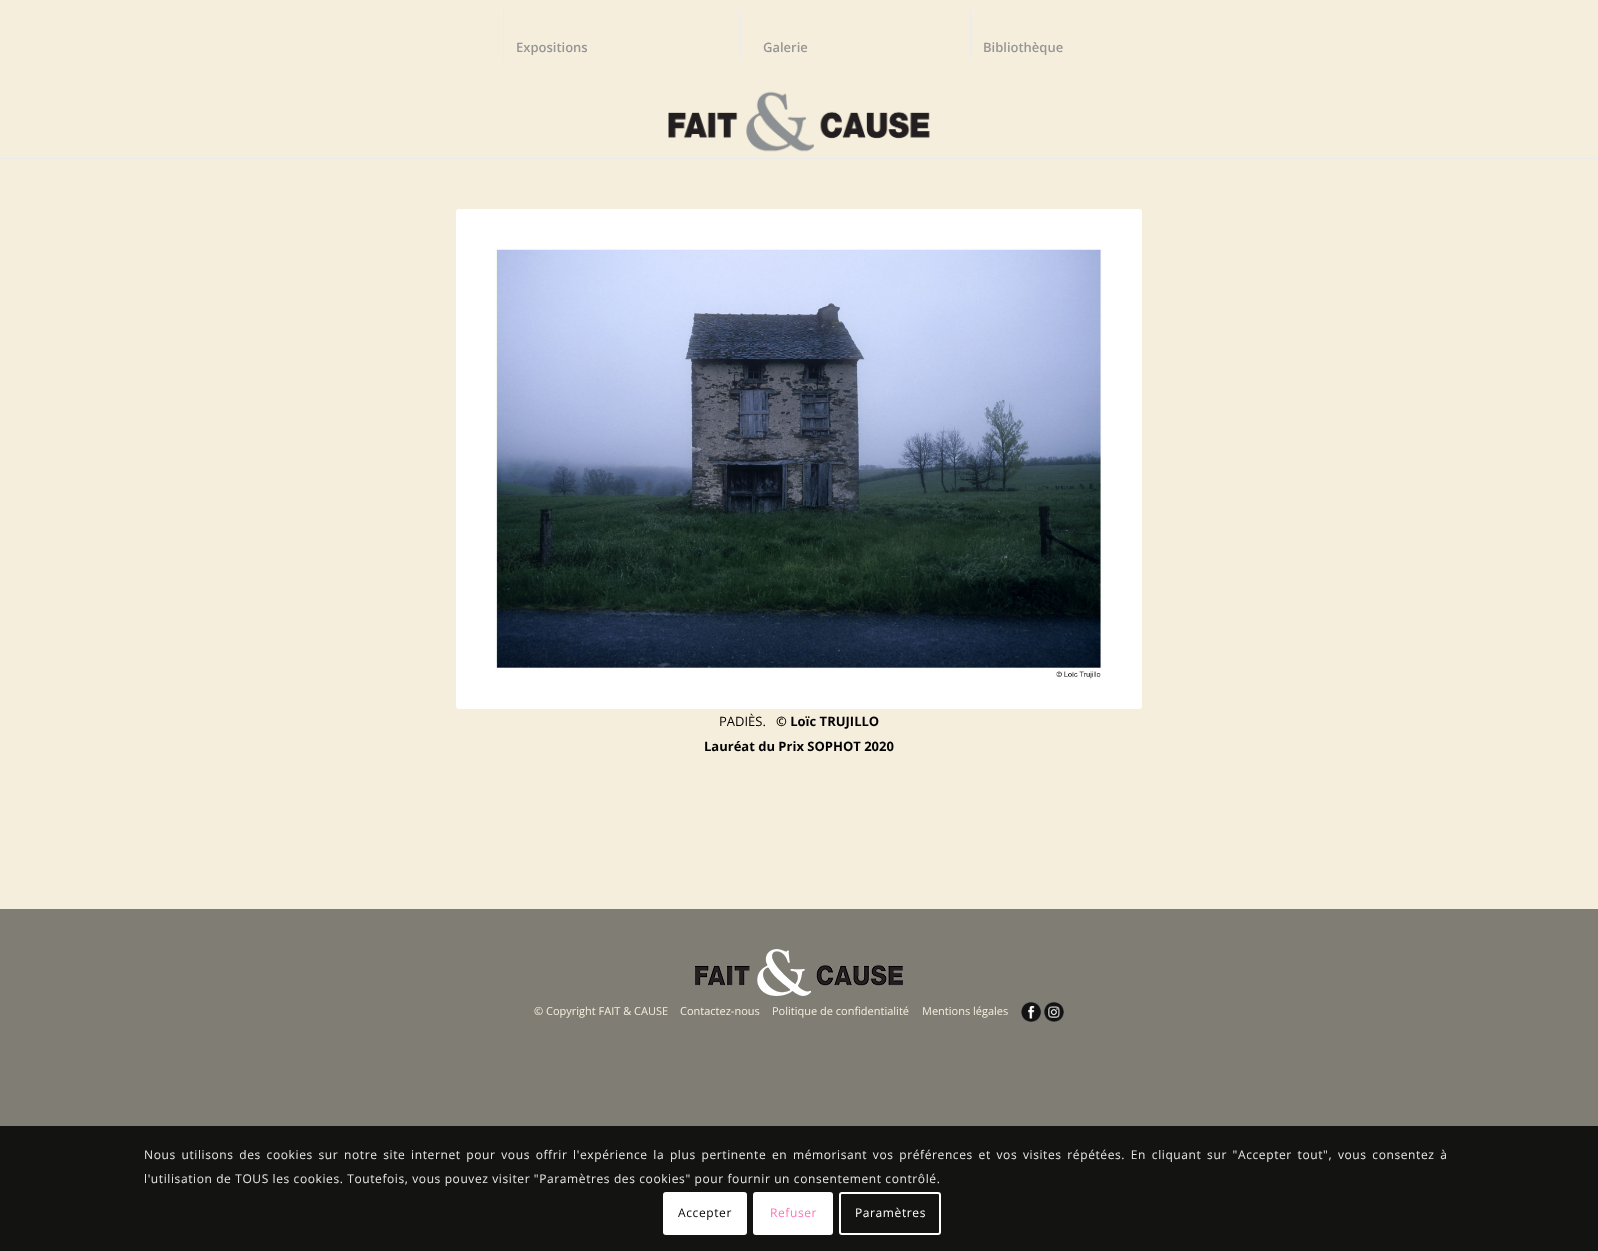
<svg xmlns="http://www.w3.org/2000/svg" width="1598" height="1251">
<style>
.a{font:600 13px Open Sans;fill:#969696}
.b{font:13px Open Sans;fill:#000}
.c{font:bold 13px Open Sans;fill:#000}
.d{font:11px Open Sans;fill:#f5eedc}
.e{font:12px Open Sans;letter-spacing:0.6px;fill:#e7e7e7}
.f{font:12px Open Sans;letter-spacing:0.6px;fill:#000}
.g{font:12px Open Sans;letter-spacing:0.6px;fill:#ff75b5}
.h{font:12px Open Sans;letter-spacing:0.6px;fill:#fff}
</style>
<rect width="100%" height="100%" fill="#807d75"/>
<path fill="#f5eedc" d="M0 0h1598v909H0z"/>
<path fill="#ebebeb" d="M503 10h1v50H503z"/>
<path fill="#ebebeb" d="M740 10h1v50H740z"/>
<path fill="#ebebeb" d="M970 10h1v50H970z"/>
<image href="1.png" x="668" y="91" width="262" height="61"/>
<path fill="#ebebeb" d="M0 158h1598v1H0z"/>
<image href="2.png" x="456" y="209" width="686" height="500"/>
<image href="3.png" x="695" y="949" width="208" height="47"/>
<image href="4.png" x="1021" y="1002" width="20" height="20"/>
<image href="5.png" x="1044" y="1002" width="20" height="20"/>
<path fill="#131312" d="M0 1126h1598v125H0z"/>
<rect fill="#fff" x="663" y="1192" width="84" height="43" rx="3"/>
<rect fill="#fff" stroke="#fff" stroke-width="2" x="754" y="1193" width="78" height="41" rx="2"/>
<rect fill="none" stroke="#fff" stroke-width="2" x="840" y="1193" width="100" height="41" rx="2"/>
<text class="a" x="516" y="52">Expositions</text>
<text class="a" x="763" y="52">Galerie</text>
<text class="a" x="983" y="52">Bibliothèque</text>
<text class="b" x="719" y="726">PADIÈS.</text>
<text class="c" x="776" y="726">© Loïc TRUJILLO</text>
<text class="c" x="704" y="751">Lauréat du Prix SOPHOT 2020</text>
<text class="d" x="534" y="1015">© Copyright FAIT &amp; CAUSE</text>
<text class="d" x="680" y="1015">Contactez-nous</text>
<text class="d" x="772" y="1015">Politique de confidentialité</text>
<text class="d" x="922" y="1015">Mentions légales</text>
<text class="e" x="144" y="1159" word-spacing="2">Nous utilisons des cookies sur notre site internet pour vous offrir l'expérience la plus pertinente en mémorisant vos préférences et vos visites répétées. En cliquant sur "Accepter tout", vous consentez à</text>
<text class="e" x="144" y="1183">l'utilisation de TOUS les cookies. Toutefois, vous pouvez visiter "Paramètres des cookies" pour fournir un consentement contrôlé.</text>
<text class="f" x="678" y="1217">Accepter</text>
<text class="g" x="770" y="1217">Refuser</text>
<text class="h" x="855" y="1217">Paramètres</text>
</svg>
